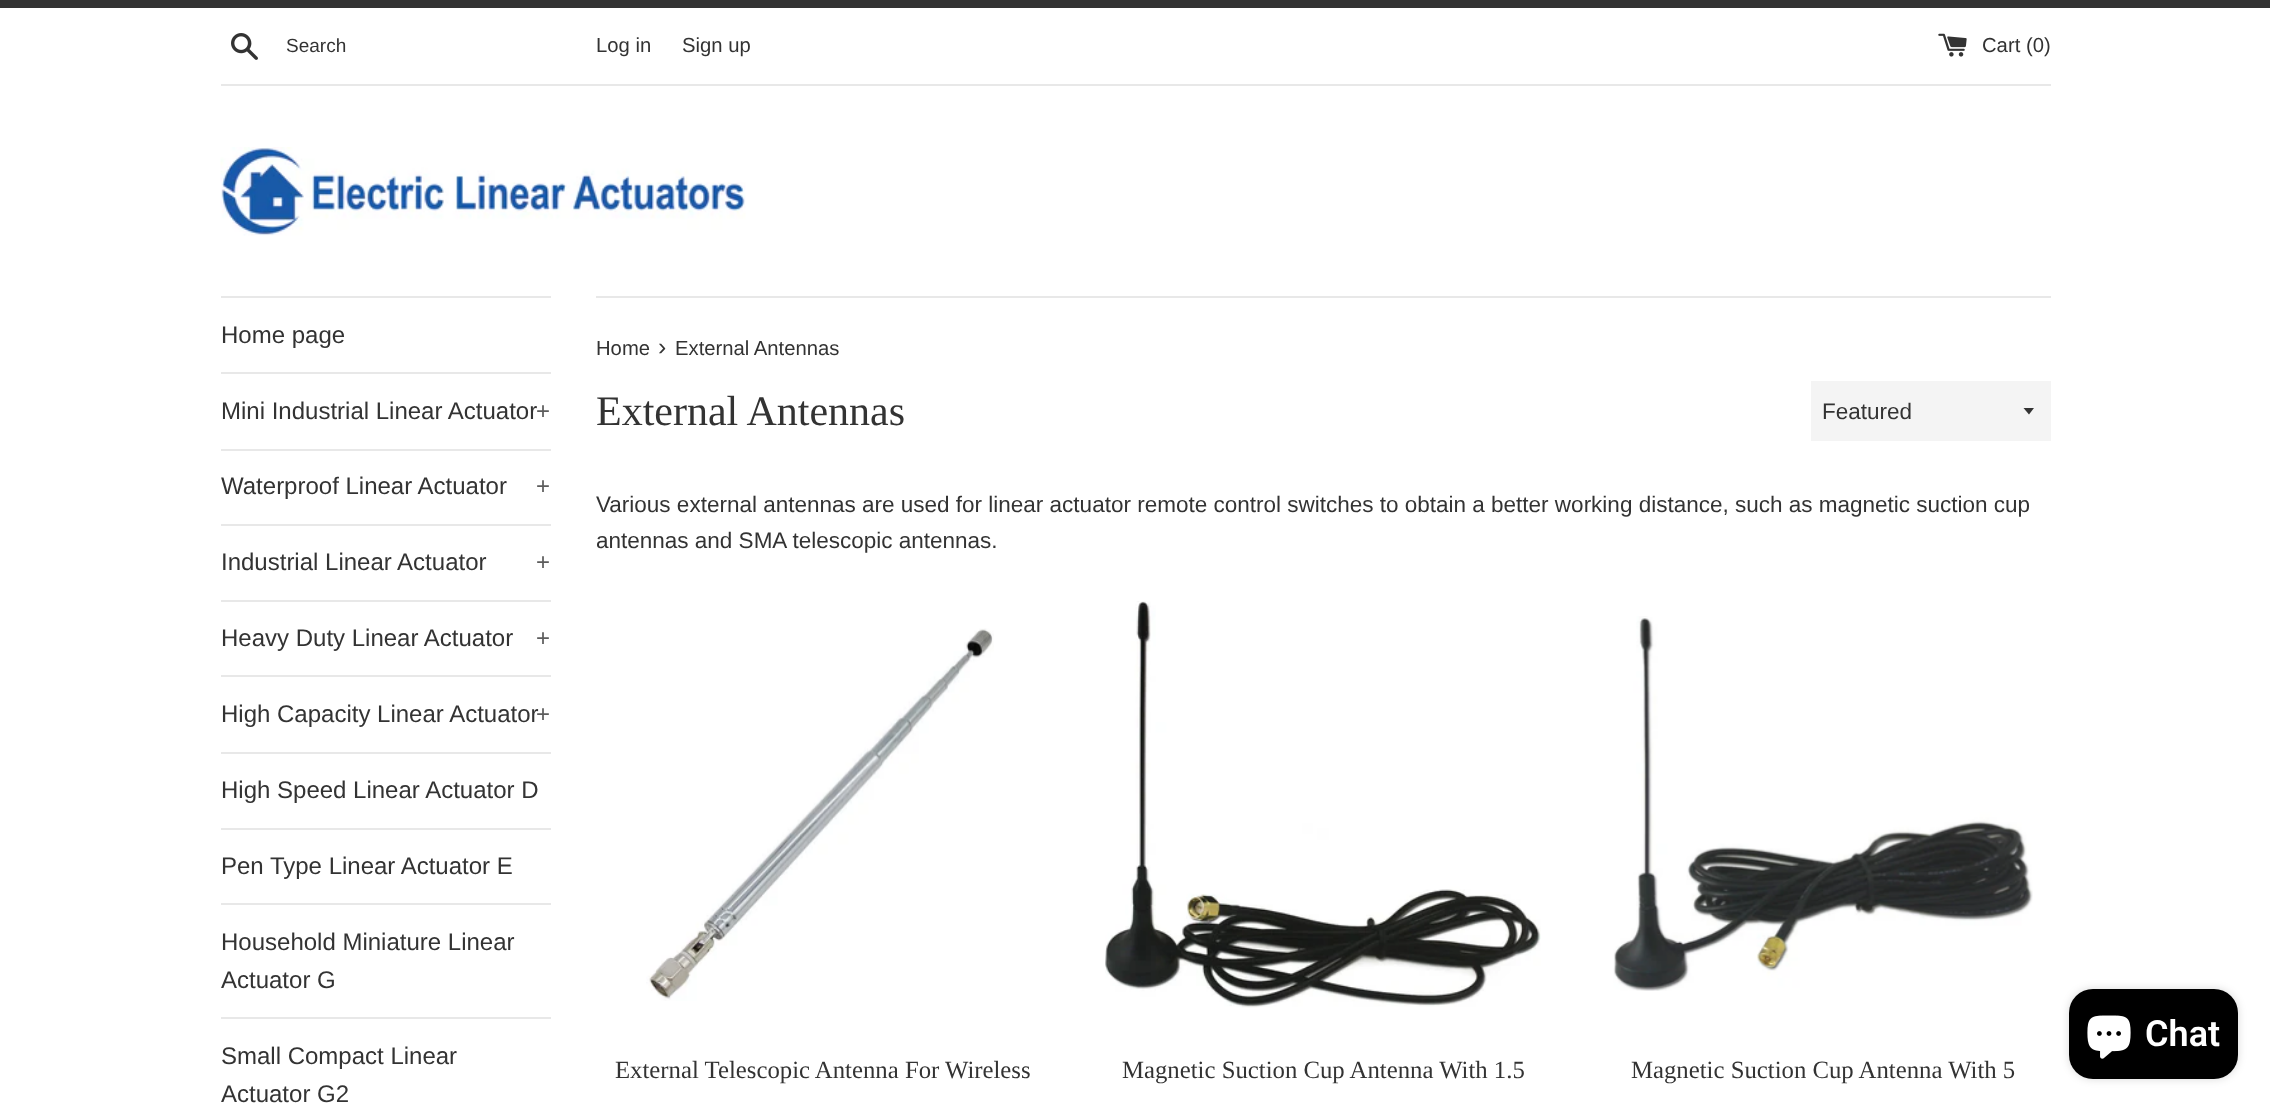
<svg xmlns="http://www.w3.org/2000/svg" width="2270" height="1110">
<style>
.a{font:19px Liberation Sans;fill:#333}
.b{font:20.25px Liberation Sans;fill:#333}
.c{font:24px Liberation Sans;fill:#333}
.d{font:24px Liberation Sans;fill:#5c5c5c}
.e{font:24.75px Liberation Sans;fill:#333}
.f{font:42px Liberation Serif;fill:#333}
.g{font:22.5px Liberation Sans;fill:#333}
.h{font:24.75px Liberation Serif;fill:#333}
.i{font:600 36px Roboto;fill:#fff}
</style>
<rect width="100%" height="100%" fill="#fff"/>
<path fill="#333" d="M0 0h2270v8H0z"/>
<image href="1.png" x="231" y="33" width="27" height="27"/>
<image href="2.png" x="1938" y="33" width="29" height="24"/>
<path fill="#e8e8e8" d="M221 84h1830v2H221z"/>
<image href="3.png" x="220" y="147" width="526" height="89"/>
<path fill="#e8e8e8" d="M221 296h330v2H221z"/>
<path fill="#e8e8e8" d="M221 372h330v2H221z"/>
<path fill="#e8e8e8" d="M221 449h330v2H221z"/>
<path fill="#e8e8e8" d="M221 524h330v2H221z"/>
<path fill="#e8e8e8" d="M221 600h330v2H221z"/>
<path fill="#e8e8e8" d="M221 675h330v2H221z"/>
<path fill="#e8e8e8" d="M221 752h330v2H221z"/>
<path fill="#e8e8e8" d="M221 828h330v2H221z"/>
<path fill="#e8e8e8" d="M221 903h330v2H221z"/>
<path fill="#e8e8e8" d="M221 1017h330v2H221z"/>
<path fill="#e8e8e8" d="M596 296h1455v2H596z"/>
<path fill="#f4f4f4" d="M1811 381h240v60H1811z"/>
<path fill="#333" d="M2023.5 408l5.5 6.5l5-6.5z"/>
<image href="4.png" x="646" y="628" width="348" height="373"/>
<image href="5.png" x="1105" y="601" width="436" height="407"/>
<image href="6.png" x="1613" y="616" width="420" height="375"/>
<rect fill="#00000026" filter="blur(4px)" x="2069" y="989" width="169" height="90" rx="24"/>
<rect fill="#000" x="2069" y="989" width="169" height="90" rx="24"/>
<image href="7.png" x="2087" y="1015" width="44" height="44"/>
<text class="a" x="286" y="52">Search</text>
<text class="b" x="596" y="52">Log in</text>
<text class="b" x="682" y="52">Sign up</text>
<text class="b" x="1982" y="52">Cart (0)</text>
<text class="c" x="221" y="343">Home page</text>
<text class="c" x="221" y="419">Mini Industrial Linear Actuator</text>
<text class="d" x="536" y="419">+</text>
<text class="c" x="221" y="494">Waterproof Linear Actuator</text>
<text class="d" x="536" y="494">+</text>
<text class="c" x="221" y="570">Industrial Linear Actuator</text>
<text class="d" x="536" y="570">+</text>
<text class="c" x="221" y="646">Heavy Duty Linear Actuator</text>
<text class="d" x="536" y="646">+</text>
<text class="c" x="221" y="722">High Capacity Linear Actuator</text>
<text class="d" x="536" y="722">+</text>
<text class="c" x="221" y="798">High Speed Linear Actuator D</text>
<text class="c" x="221" y="874">Pen Type Linear Actuator E</text>
<text class="c" x="221" y="950">Household Miniature Linear</text>
<text class="c" x="221" y="988">Actuator G</text>
<text class="c" x="221" y="1064">Small Compact Linear</text>
<text class="c" x="221" y="1102">Actuator G2</text>
<text class="b" x="596" y="355">Home</text>
<text class="e" x="658" y="355">›</text>
<text class="b" x="675" y="355">External Antennas</text>
<text class="f" x="596" y="425">External Antennas</text>
<text class="g" x="1822" y="419">Featured</text>
<text class="g" x="596" y="512">Various external antennas are used for linear actuator remote control switches to obtain a better working distance, such as magnetic suction cup</text>
<text class="g" x="596" y="548">antennas and SMA telescopic antennas.</text>
<text class="h" x="615" y="1078">External Telescopic Antenna For Wireless</text>
<text class="h" x="1122" y="1078">Magnetic Suction Cup Antenna With 1.5</text>
<text class="h" x="1631" y="1078">Magnetic Suction Cup Antenna With 5</text>
<text class="i" x="2145" y="1046">Chat</text>
</svg>
